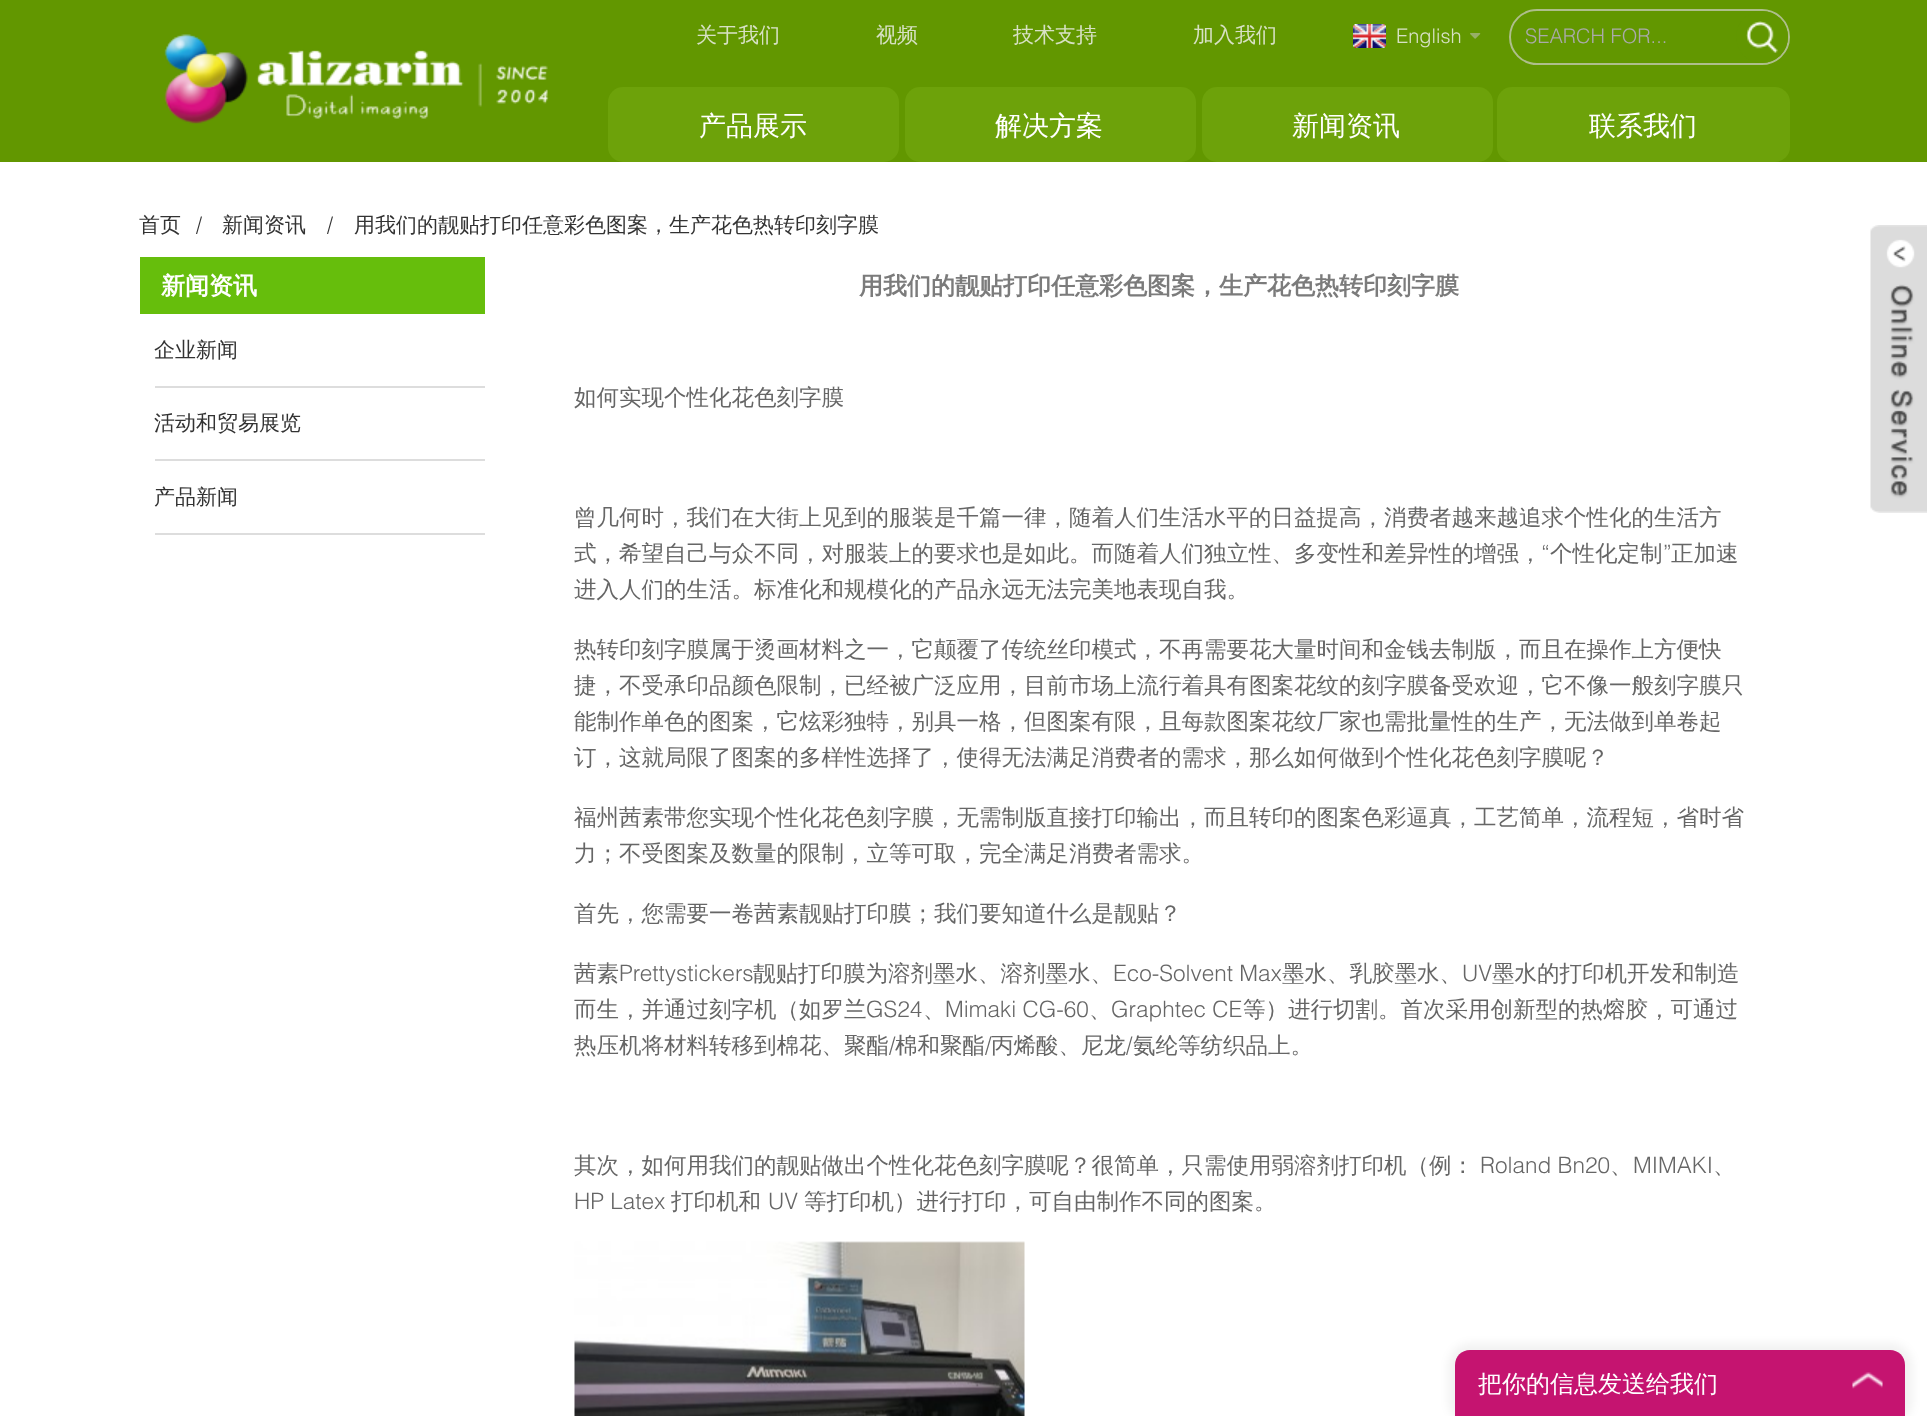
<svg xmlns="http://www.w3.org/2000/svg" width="1927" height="1416">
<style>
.a{font:500 21px WenQuanYi Zen Hei;fill:#d7e1c4}
.b{font:300 20px Helvetica;fill:#d7e1c4}
.c{font:300 20px Helvetica;fill:#aaa}
.d{font:500 27px WenQuanYi Zen Hei;fill:#fff}
.e{font:500 21px WenQuanYi Zen Hei;fill:#333}
.f{font:300 21px Helvetica;fill:#333}
.g{font:bold 24px WenQuanYi Zen Hei;fill:#fff}
.h{font:bold 24px WenQuanYi Zen Hei;fill:#7b7b7b}
.i{font:500 22.5px WenQuanYi Zen Hei;fill:#666}
.j{font:300 22.5px Helvetica;fill:#666}
.k{font:500 24px WenQuanYi Zen Hei;fill:#fff}
</style>
<rect width="100%" height="100%" fill="#fff"/>
<path fill="#629700" d="M0 0h1927v162H0z"/>
<image href="1.png" x="1353" y="24" width="33" height="24"/>
<image href="2.png" x="1470" y="33" width="11" height="6"/>
<rect fill="none" stroke="#aebe8b" stroke-width="2" x="1510" y="10" width="279" height="54" rx="27"/>
<circle fill="#629700" cx="1762" cy="37" r="26"/>
<image href="3.png" x="1746" y="21" width="32" height="32"/>
<image href="4.png" x="164" y="34" width="385" height="90"/>
<rect fill="#6da20a" x="608" y="87" width="291" height="75" rx="15"/>
<rect fill="#6da20a" x="905" y="87" width="291" height="75" rx="15"/>
<rect fill="#6da20a" x="1202" y="87" width="291" height="75" rx="15"/>
<rect fill="#6da20a" x="1497" y="87" width="293" height="75" rx="15"/>
<path fill="#66be0c" d="M140 257h345v57H140z"/>
<path fill="#ddd" d="M155 386h330v2H155z"/>
<path fill="#ddd" d="M155 459h330v2H155z"/>
<path fill="#ddd" d="M155 533h330v2H155z"/>
<image href="5.png" x="574" y="1241" width="451" height="175"/>
<image href="6.png" x="1870" y="225" width="57" height="288"/>
<rect fill="#0000000d" filter="blur(4px)" x="1448" y="1343" width="465" height="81" rx="23"/>
<path fill="#c51470" d="M1470 1350h420c8.5 0 15 6.5 15 15v51h-450v-51c0-8.5 6.5-15 15-15z"/>
<image href="7.png" x="1852" y="1372" width="31" height="17"/>
<text class="a" x="696" y="42">关于我们</text>
<text class="a" x="876" y="42">视频</text>
<text class="a" x="1013" y="42">技术支持</text>
<text class="a" x="1193" y="42">加入我们</text>
<text class="b" x="1396" y="43">English</text>
<text class="c" x="1525" y="43">SEARCH FOR...</text>
<text class="d" x="699" y="135">产品展示</text>
<text class="d" x="995" y="135">解决方案</text>
<text class="d" x="1292" y="135">新闻资讯</text>
<text class="d" x="1589" y="135">联系我们</text>
<text class="e" x="139" y="232">首页</text>
<text class="f" x="196" y="232">/</text>
<text class="e" x="222" y="232">新闻资讯</text>
<text class="f" x="327" y="232">/</text>
<text class="e" x="354" y="232">用我们的靓贴打印任意彩色图案，生产花色热转印刻字膜</text>
<text class="g" x="161" y="294">新闻资讯</text>
<text class="e" x="154" y="357">企业新闻</text>
<text class="e" x="154" y="430">活动和贸易展览</text>
<text class="e" x="154" y="504">产品新闻</text>
<text class="h" x="859" y="294">用我们的靓贴打印任意彩色图案，生产花色热转印刻字膜</text>
<text class="i" x="574" y="405">如何实现个性化花色刻字膜</text>
<text class="i" x="574" y="525">曾几何时，我们在大街上见到的服装是千篇一律，随着人们生活水平的日益提高，消费者越来越追求个性化的生活方</text>
<text class="i" x="574" y="561">式，希望自己与众不同，对服装上的要求也是如此。而随着人们独立性、多变性和差异性的增强，</text>
<text class="j" x="1541" y="561">“</text>
<text class="i" x="1550" y="561">个性化定制</text>
<text class="j" x="1663" y="561">”</text>
<text class="i" x="1671" y="561">正加速</text>
<text class="i" x="574" y="597">进入人们的生活。标准化和规模化的产品永远无法完美地表现自我。</text>
<text class="i" x="574" y="657">热转印刻字膜属于烫画材料之一，它颠覆了传统丝印模式，不再需要花大量时间和金钱去制版，而且在操作上方便快</text>
<text class="i" x="574" y="693">捷，不受承印品颜色限制，已经被广泛应用，目前市场上流行着具有图案花纹的刻字膜备受欢迎，它不像一般刻字膜只</text>
<text class="i" x="574" y="729">能制作单色的图案，它炫彩独特，别具一格，但图案有限，且每款图案花纹厂家也需批量性的生产，无法做到单卷起</text>
<text class="i" x="574" y="765">订，这就局限了图案的多样性选择了，使得无法满足消费者的需求，那么如何做到个性化花色刻字膜呢？</text>
<text class="i" x="574" y="825">福州茜素带您实现个性化花色刻字膜，无需制版直接打印输出，而且转印的图案色彩逼真，工艺简单，流程短，省时省</text>
<text class="i" x="574" y="861">力；不受图案及数量的限制，立等可取，完全满足消费者需求。</text>
<text class="i" x="574" y="921">首先，您需要一卷茜素靓贴打印膜；我们要知道什么是靓贴？</text>
<text class="i" x="574" y="981">茜素</text>
<text class="j" x="619" y="981">Prettystickers</text>
<text class="i" x="753" y="981">靓贴打印膜为溶剂墨水、溶剂墨水、</text>
<text class="j" x="1113" y="981">Eco-Solvent Max</text>
<text class="i" x="1282" y="981">墨水、乳胶墨水、</text>
<text class="j" x="1462" y="981">UV</text>
<text class="i" x="1492" y="981">墨水的打印机开发和制造</text>
<text class="i" x="574" y="1017">而生，并通过刻字机（如罗兰</text>
<text class="j" x="866" y="1017">GS24</text>
<text class="i" x="923" y="1017">、</text>
<text class="j" x="945" y="1017">Mimaki CG-60</text>
<text class="i" x="1089" y="1017">、</text>
<text class="j" x="1111" y="1017">Graphtec CE</text>
<text class="i" x="1243" y="1017">等）进行切割。首次采用创新型的热熔胶，可通过</text>
<text class="i" x="574" y="1053">热压机将材料转移到棉花、聚酯</text>
<text class="j" x="889" y="1053">/</text>
<text class="i" x="895" y="1053">棉和聚酯</text>
<text class="j" x="985" y="1053">/</text>
<text class="i" x="991" y="1053">丙烯酸、尼龙</text>
<text class="j" x="1126" y="1053">/</text>
<text class="i" x="1133" y="1053">氨纶等纺织品上。</text>
<text class="i" x="574" y="1173">其次，如何用我们的靓贴做出个性化花色刻字膜呢？很简单，只需使用弱溶剂打印机（例：</text>
<text class="j" x="1480" y="1173">Roland Bn20</text>
<text class="j" x="1633" y="1173">MIMAKI</text>
<text class="i" x="1610" y="1173">、</text>
<text class="i" x="1713" y="1173">、</text>
<text class="j" x="574" y="1209">HP Latex</text>
<text class="i" x="671" y="1209">打印机和</text>
<text class="j" x="768" y="1209">UV</text>
<text class="i" x="804" y="1209">等打印机）进行打印，可自由制作不同的图案。</text>
<text class="k" x="1478" y="1392">把你的信息发送给我们</text>
</svg>
